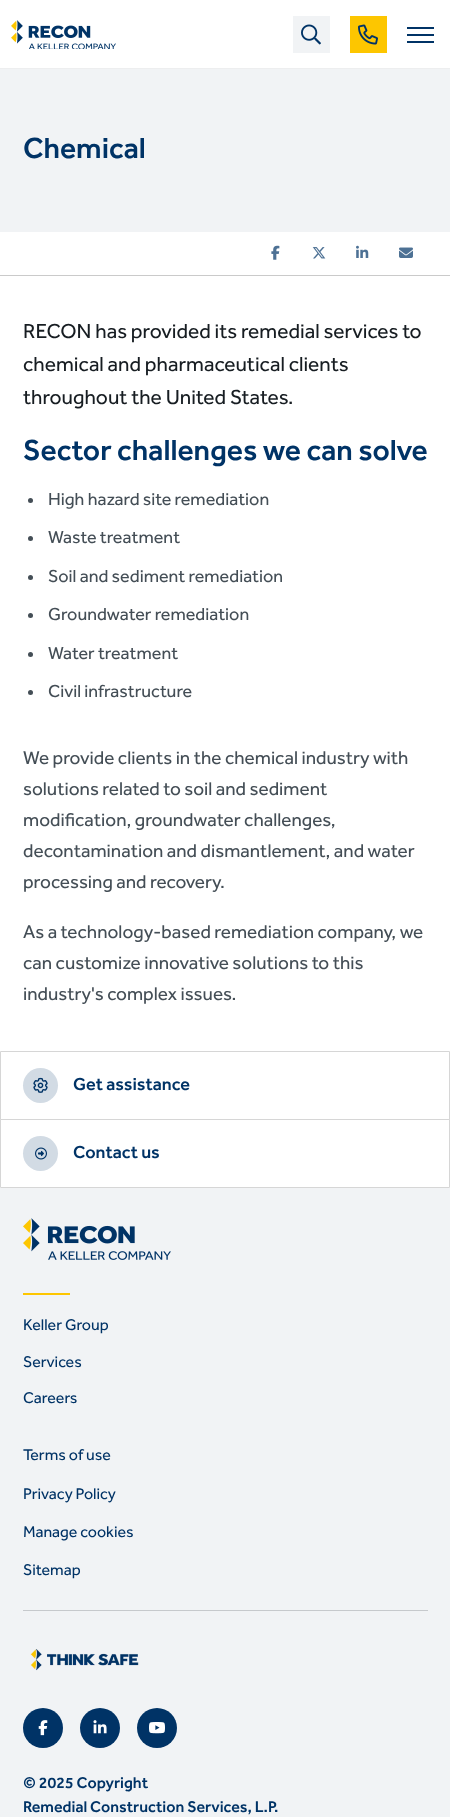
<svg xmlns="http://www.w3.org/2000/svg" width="450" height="1817">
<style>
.a{font:30px 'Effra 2';fill:#036}
.b{font:21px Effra;fill:#171d22}
.c{font:18px Effra;fill:#444e56}
.d{font:19px Effra;fill:#444e56}
.e{font:18px 'Effra 2';fill:#036}
.f{font:16px Effra;fill:#036}
.g{font:16px 'Effra 2';fill:#036}
</style>
<rect width="100%" height="100%" fill="#fff"/>
<path fill="#edeeef" d="M0 68h450v1H0z"/>
<image href="1.png" x="11" y="20" width="105" height="29"/>
<path fill="#f1f3f5" d="M293 16h37v37H293z"/>
<image href="2.png" x="301" y="24" width="20" height="21"/>
<path fill="#fdc600" d="M350 16h37v37H350z"/>
<image href="3.png" x="358" y="24" width="20" height="21"/>
<path fill="#036" d="M407 27h27v2H407z"/>
<path fill="#036" d="M407 34h27v2H407z"/>
<path fill="#036" d="M407 41h27v2H407z"/>
<path fill="#f1f3f5" d="M0 69h450v163H0z"/>
<path fill="#cacaca" d="M0 275h450v1H0z"/>
<image href="4.png" x="271" y="245" width="9" height="15"/>
<image href="5.png" x="312" y="247" width="14" height="12"/>
<image href="6.png" x="356" y="245" width="13" height="13"/>
<image href="7.png" x="399" y="247" width="14" height="11"/>
<circle fill="#444e56" cx="30.5" cy="500.5" r="2.5"/>
<circle fill="#444e56" cx="30.5" cy="538.5" r="2.5"/>
<circle fill="#444e56" cx="30.5" cy="577.5" r="2.5"/>
<circle fill="#444e56" cx="30.5" cy="615.5" r="2.5"/>
<circle fill="#444e56" cx="30.5" cy="654.5" r="2.5"/>
<circle fill="#444e56" cx="30.5" cy="692.5" r="2.5"/>
<path fill="#f1f3f5" d="M0 1188h450v629H0z"/>
<path fill="none" stroke="#d6d6d6" d="M0.5 1051.5h449v68H0.5z"/>
<circle fill="#d2dbe4" cx="40.5" cy="1085.5" r="17.5"/>
<image href="8.png" x="33" y="1077" width="15" height="16"/>
<path fill="none" stroke="#d6d6d6" d="M0.5 1119.5h449v68H0.5z"/>
<circle fill="#d2dbe4" cx="40.5" cy="1153.5" r="17.5"/>
<image href="9.png" x="35" y="1147" width="12" height="13"/>
<image href="10.png" x="23" y="1218" width="148" height="42"/>
<path fill="#fdc600" d="M23 1293h47v2H23z"/>
<path fill="#c6c9cc" d="M23 1610h405v1H23z"/>
<image href="11.png" x="30" y="1649" width="109" height="22"/>
<circle fill="#036" cx="43" cy="1728" r="20"/>
<image href="12.png" x="38" y="1720" width="10" height="16"/>
<circle fill="#036" cx="100" cy="1728" r="20"/>
<image href="13.png" x="93" y="1720" width="14" height="14"/>
<circle fill="#036" cx="157" cy="1728" r="20"/>
<image href="14.png" x="149" y="1722" width="16" height="12"/>
<text class="a" x="23" y="158">Chemical</text>
<text class="b" x="23" y="338">RECON has provided its remedial services to</text>
<text class="b" x="23" y="371">chemical and pharmaceutical clients</text>
<text class="b" x="23" y="404">throughout the United States.</text>
<text class="a" x="23" y="460">Sector challenges we can solve</text>
<text class="c" x="48" y="505">High hazard site remediation</text>
<text class="c" x="48" y="543">Waste treatment</text>
<text class="c" x="48" y="582">Soil and sediment remediation</text>
<text class="c" x="48" y="620">Groundwater remediation</text>
<text class="c" x="48" y="659">Water treatment</text>
<text class="c" x="48" y="697">Civil infrastructure</text>
<text class="d" x="23" y="764">We provide clients in the chemical industry with</text>
<text class="d" x="23" y="795">solutions related to soil and sediment</text>
<text class="d" x="23" y="826">modification, groundwater challenges,</text>
<text class="d" x="23" y="857">decontamination and dismantlement, and water</text>
<text class="d" x="23" y="888">processing and recovery.</text>
<text class="d" x="23" y="938">As a technology-based remediation company, we</text>
<text class="d" x="23" y="969">can customize innovative solutions to this</text>
<text class="d" x="23" y="1000">industry's complex issues.</text>
<text class="e" x="73" y="1090">Get assistance</text>
<text class="e" x="73" y="1158">Contact us</text>
<text class="f" x="23" y="1330">Keller Group</text>
<text class="f" x="23" y="1367">Services</text>
<text class="f" x="23" y="1403">Careers</text>
<text class="f" x="23" y="1460">Terms of use</text>
<text class="f" x="23" y="1499">Privacy Policy</text>
<text class="f" x="23" y="1537">Manage cookies</text>
<text class="f" x="23" y="1575">Sitemap</text>
<text class="g" x="23" y="1788">© 2025 Copyright</text>
<text class="g" x="23" y="1812">Remedial Construction Services, L.P.</text>
</svg>
